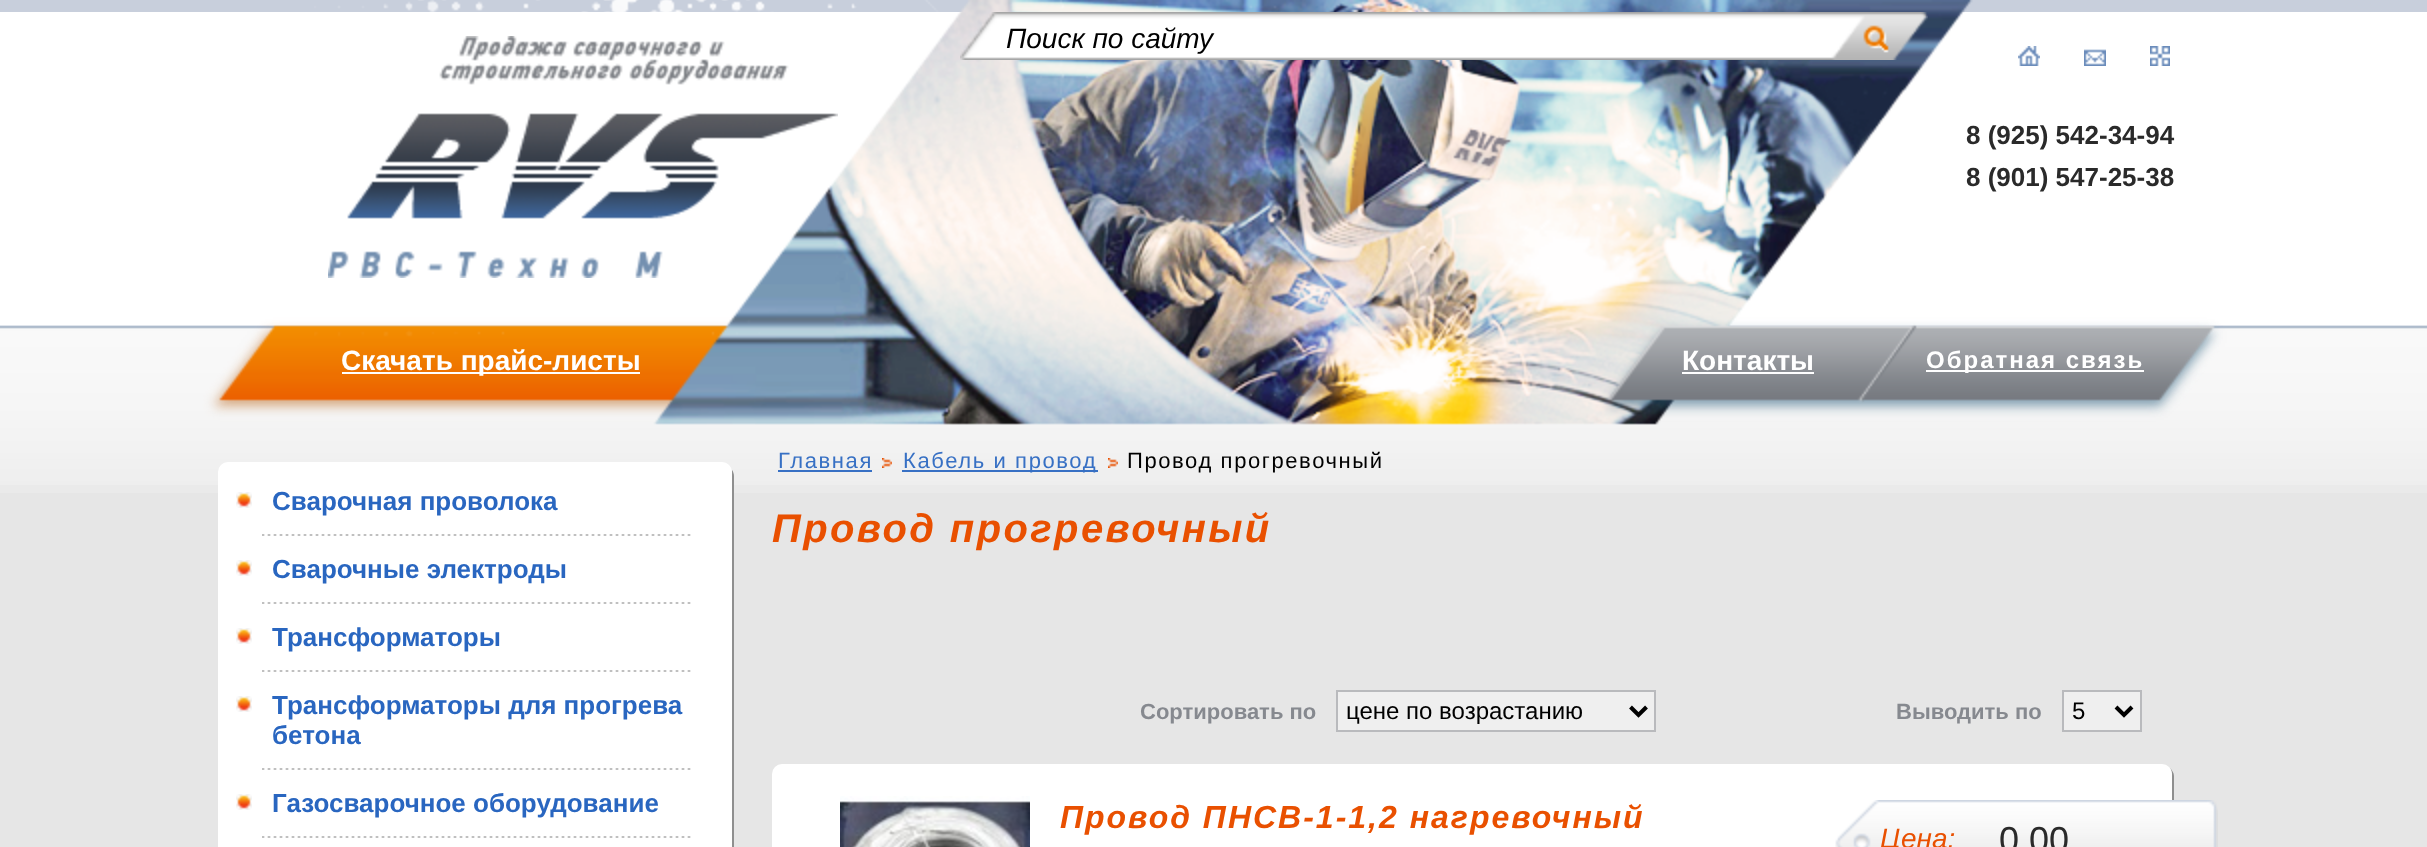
<svg xmlns="http://www.w3.org/2000/svg" width="2427" height="847">
<style>
.a{font:italic 28px Liberation Sans;fill:#000}
.b{font:bold 26px Liberation Sans;fill:#2a2a2a}
.c{font:bold 28px Liberation Sans;fill:#fff}
.d{font:bold 24px Liberation Sans;letter-spacing:2px;fill:#fff}
.e{font:bold 26px Liberation Sans;fill:#2966c0}
.f{font:22px Liberation Sans;letter-spacing:1.6px;fill:#3770c4}
.g{font:22px Liberation Sans;letter-spacing:1.6px;fill:#000}
.h{font:italic bold 40px Liberation Sans;letter-spacing:2.4px;fill:#e95000}
.i{font:bold 22px Liberation Sans;fill:#86898f}
.j{font:24px Liberation Sans;fill:#000}
.k{font:italic bold 32px Liberation Sans;letter-spacing:2px;fill:#e95000}
.l{font:italic 28px Liberation Sans;fill:#e95000}
.m{font:36px Liberation Sans;fill:#2a2a2a}
</style>
<rect width="100%" height="100%" fill="#e6e6e6"/>
<image href="1.png" x="0" y="12" width="2427" height="473"/>
<path fill="#c8cfdc" d="M0 0h2427v12H0z"/>
<image href="2.png" x="0" y="0" width="2427" height="493"/>
<image href="3.png" x="314" y="0" width="1057" height="399"/>
<image href="4.png" x="328" y="36" width="510" height="242"/>
<image href="5.png" x="960" y="12" width="968" height="48"/>
<image href="6.png" x="2018" y="46" width="22" height="20"/>
<image href="7.png" x="2084" y="49" width="22" height="17"/>
<image href="8.png" x="2150" y="46" width="20" height="20"/>
<path fill="#fff" d="M342 372h298v2H342z"/>
<path fill="#fff" d="M1682 372h132v2H1682z"/>
<path fill="#fff" d="M1926 370h218v2H1926z"/>
<path fill="#8f8f8f" d="M220 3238c1 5 5 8 10 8h494c6 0 10-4 10-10v-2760c0-2-1-5-2-6v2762c0 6-4 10-10 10h-494c-3 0-6-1-8-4z"/>
<rect fill="#fff" x="218" y="462" width="514" height="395" rx="10"/>
<image href="9.png" x="262" y="534" width="429" height="2"/>
<image href="10.png" x="236" y="492" width="16" height="16"/>
<image href="9.png" x="262" y="602" width="429" height="2"/>
<image href="10.png" x="236" y="560" width="16" height="16"/>
<image href="9.png" x="262" y="670" width="429" height="2"/>
<image href="10.png" x="236" y="628" width="16" height="16"/>
<image href="9.png" x="262" y="768" width="429" height="2"/>
<image href="10.png" x="236" y="696" width="16" height="16"/>
<image href="9.png" x="262" y="836" width="429" height="2"/>
<image href="10.png" x="236" y="794" width="16" height="16"/>
<image href="11.png" x="882" y="458" width="10" height="10"/>
<path fill="#3770c4" d="M778 470h94v2H778z"/>
<image href="11.png" x="1108" y="458" width="10" height="10"/>
<path fill="#3770c4" d="M902 470h196v2H902z"/>
<path fill="#efefef" stroke="#b9babd" stroke-width="2" d="M1337 691h318v40H1337z"/>
<path fill="none" stroke="#000" stroke-width="4" d="M1630.5 707l8 8l8-8"/>
<path fill="#efefef" stroke="#b9babd" stroke-width="2" d="M2063 691h78v40H2063z"/>
<path fill="none" stroke="#000" stroke-width="4" d="M2116 707l8 8l8-8"/>
<path fill="#8f8f8f" d="M776 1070c2 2 5 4 8 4h1380c6 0 10-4 10-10v-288c0-3-2-6-4-8c1 2 2 4 2 6v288c0 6-4 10-10 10h-1380c-2 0-4-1-6-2z"/>
<rect fill="#fff" x="772" y="764" width="1400" height="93" rx="10"/>
<image href="12.png" x="840" y="796" width="190" height="51"/>
<image href="13.png" x="1835" y="800" width="383" height="47"/>
<text class="a" x="1006" y="48">Поиск по сайту</text>
<text class="b" x="1966" y="144">8 (925) 542-34-94</text>
<text class="b" x="1966" y="186">8 (901) 547-25-38</text>
<text class="c" x="341" y="370">Скачать прайс-листы</text>
<text class="c" x="1682" y="370">Контакты</text>
<text class="d" x="1926" y="368">Обратная связь</text>
<text class="e" x="272" y="510">Сварочная проволока</text>
<text class="e" x="272" y="578">Сварочные электроды</text>
<text class="e" x="272" y="646">Трансформаторы</text>
<text class="e" x="272" y="714">Трансформаторы для прогрева</text>
<text class="e" x="272" y="744">бетона</text>
<text class="e" x="272" y="812">Газосварочное оборудование</text>
<text class="f" x="778" y="468">Главная</text>
<text class="f" x="903" y="468">Кабель и провод</text>
<text class="g" x="1127" y="468">Провод прогревочный</text>
<text class="h" x="772" y="542">Провод прогревочный</text>
<text class="i" x="1140" y="719">Сортировать по</text>
<text class="j" x="1346" y="719">цене по возрастанию</text>
<text class="i" x="1896" y="719">Выводить по</text>
<text class="j" x="2072" y="719">5</text>
<text class="k" x="1060" y="828">Провод ПНСВ-1-1,2 нагревочный</text>
<text class="l" x="1880" y="848">Цена:</text>
<text class="m" x="1999" y="852">0.00</text>
</svg>
